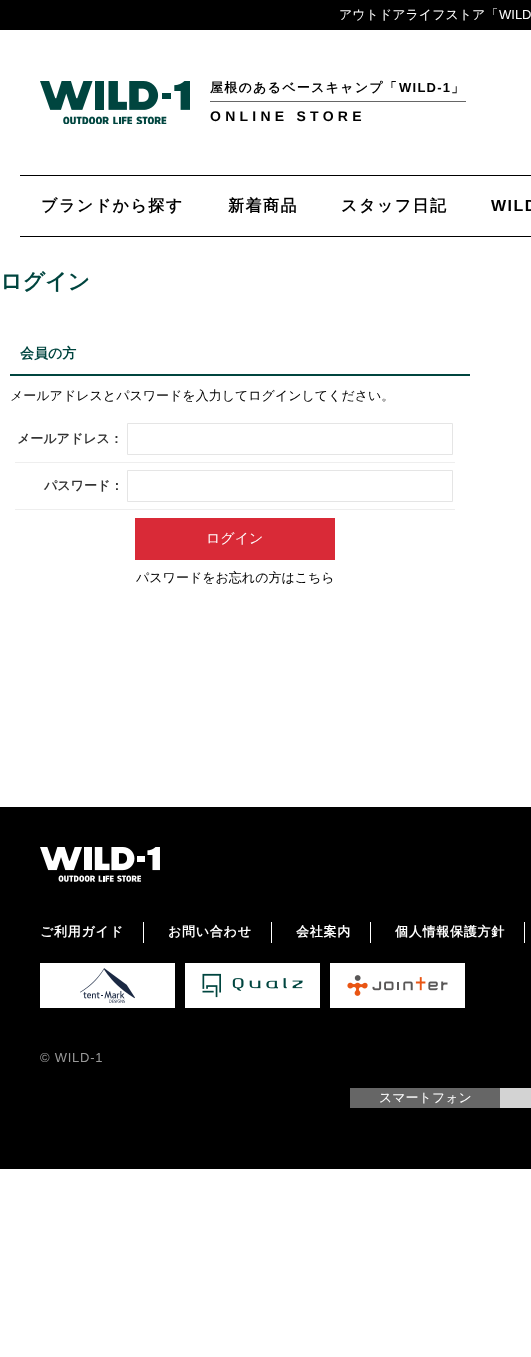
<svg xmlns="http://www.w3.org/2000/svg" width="531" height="1357">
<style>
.a{font:500 13px WenQuanYi Zen Hei;fill:#fff}
.b{font:13px Liberation Sans;fill:#fff}
.c{font:bold 13px WenQuanYi Zen Hei;letter-spacing:1.25px;fill:#000}
.d{font:bold 13px Liberation Sans;letter-spacing:1.25px;fill:#000}
.e{font:bold 14px Liberation Sans;letter-spacing:4.25px;fill:#000}
.f{font:bold 16px WenQuanYi Zen Hei;letter-spacing:1.5px;fill:#000}
.g{font:bold 16px Liberation Sans;letter-spacing:1.5px;fill:#000}
.h{font:bold 22px WenQuanYi Zen Hei;fill:#00453f}
.i{font:bold 14px WenQuanYi Zen Hei;fill:#00453f}
.j{font:500 13px WenQuanYi Zen Hei;fill:#000}
.k{font:bold 13px WenQuanYi Zen Hei;fill:#333}
.l{font:500 14px WenQuanYi Zen Hei;fill:#fff}
.m{font:bold 13px WenQuanYi Zen Hei;letter-spacing:0.75px;fill:#fff}
.n{font:13px Liberation Sans;letter-spacing:0.75px;fill:#999}
</style>
<rect width="100%" height="100%" fill="#fff"/>
<path fill="#000" d="M0 0h531v30H0z"/>
<image href="1.png" x="40" y="81" width="150" height="43"/>
<path fill="#666" d="M210 101h256v1H210z"/>
<path fill="#000" d="M20 175h511v1H20z"/>
<path fill="#000" d="M20 236h511v1H20z"/>
<path fill="#00453f" d="M10 374h460v2H10z"/>
<path fill="#eee" d="M15 462h440v1H15z"/>
<path fill="none" stroke="#e5e5e5" d="M127.5 423.5h325v31H127.5z"/>
<path fill="#eee" d="M15 509h440v1H15z"/>
<path fill="none" stroke="#e5e5e5" d="M127.5 470.5h325v31H127.5z"/>
<path fill="#d92a37" d="M135 518h200v42H135z"/>
<path fill="#000" d="M0 807h531v362H0z"/>
<image href="2.png" x="40" y="847" width="120" height="35"/>
<path fill="#fff" d="M143 922h1v21H143z"/>
<path fill="#fff" d="M271 922h1v21H271z"/>
<path fill="#fff" d="M370 922h1v21H370z"/>
<path fill="#fff" d="M524 922h1v21H524z"/>
<image href="3.png" x="40" y="963" width="135" height="45"/>
<image href="4.png" x="185" y="963" width="135" height="45"/>
<image href="5.png" x="330" y="963" width="135" height="45"/>
<path fill="#666" d="M350 1088h150v20H350z"/>
<path fill="#d3d3d3" d="M500 1088h31v20H500z"/>
<text class="a" x="339" y="19">アウトドアライフストア「</text>
<text class="b" x="499" y="19">WILD</text>
<text class="c" x="210" y="92">屋根のあるベースキャンプ「</text>
<text class="d" x="399" y="92">WILD-1</text>
<text class="c" x="451" y="92">」</text>
<text class="e" x="210" y="121">ONLINE STORE</text>
<text class="f" x="41" y="211">ブランドから探す</text>
<text class="f" x="228" y="211">新着商品</text>
<text class="f" x="341" y="211">スタッフ日記</text>
<text class="g" x="491" y="211">WILD</text>
<text class="h" x="0" y="289">ログイン</text>
<text class="i" x="20" y="358">会員の方</text>
<text class="j" x="10" y="400">メールアドレスとパスワードを入力してログインしてください。</text>
<text class="k" x="17" y="443">メールアドレス：</text>
<text class="k" x="44" y="490">パスワード：</text>
<text class="l" x="206" y="543">ログイン</text>
<text class="j" x="136" y="582">パスワードをお忘れの方はこちら</text>
<text class="m" x="40" y="936">ご利用ガイド</text>
<text class="m" x="168" y="936">お問い合わせ</text>
<text class="m" x="296" y="936">会社案内</text>
<text class="m" x="395" y="936">個人情報保護方針</text>
<text class="n" x="40" y="1062">© WILD-1</text>
<text class="a" x="379" y="1102">スマートフォン</text>
</svg>
